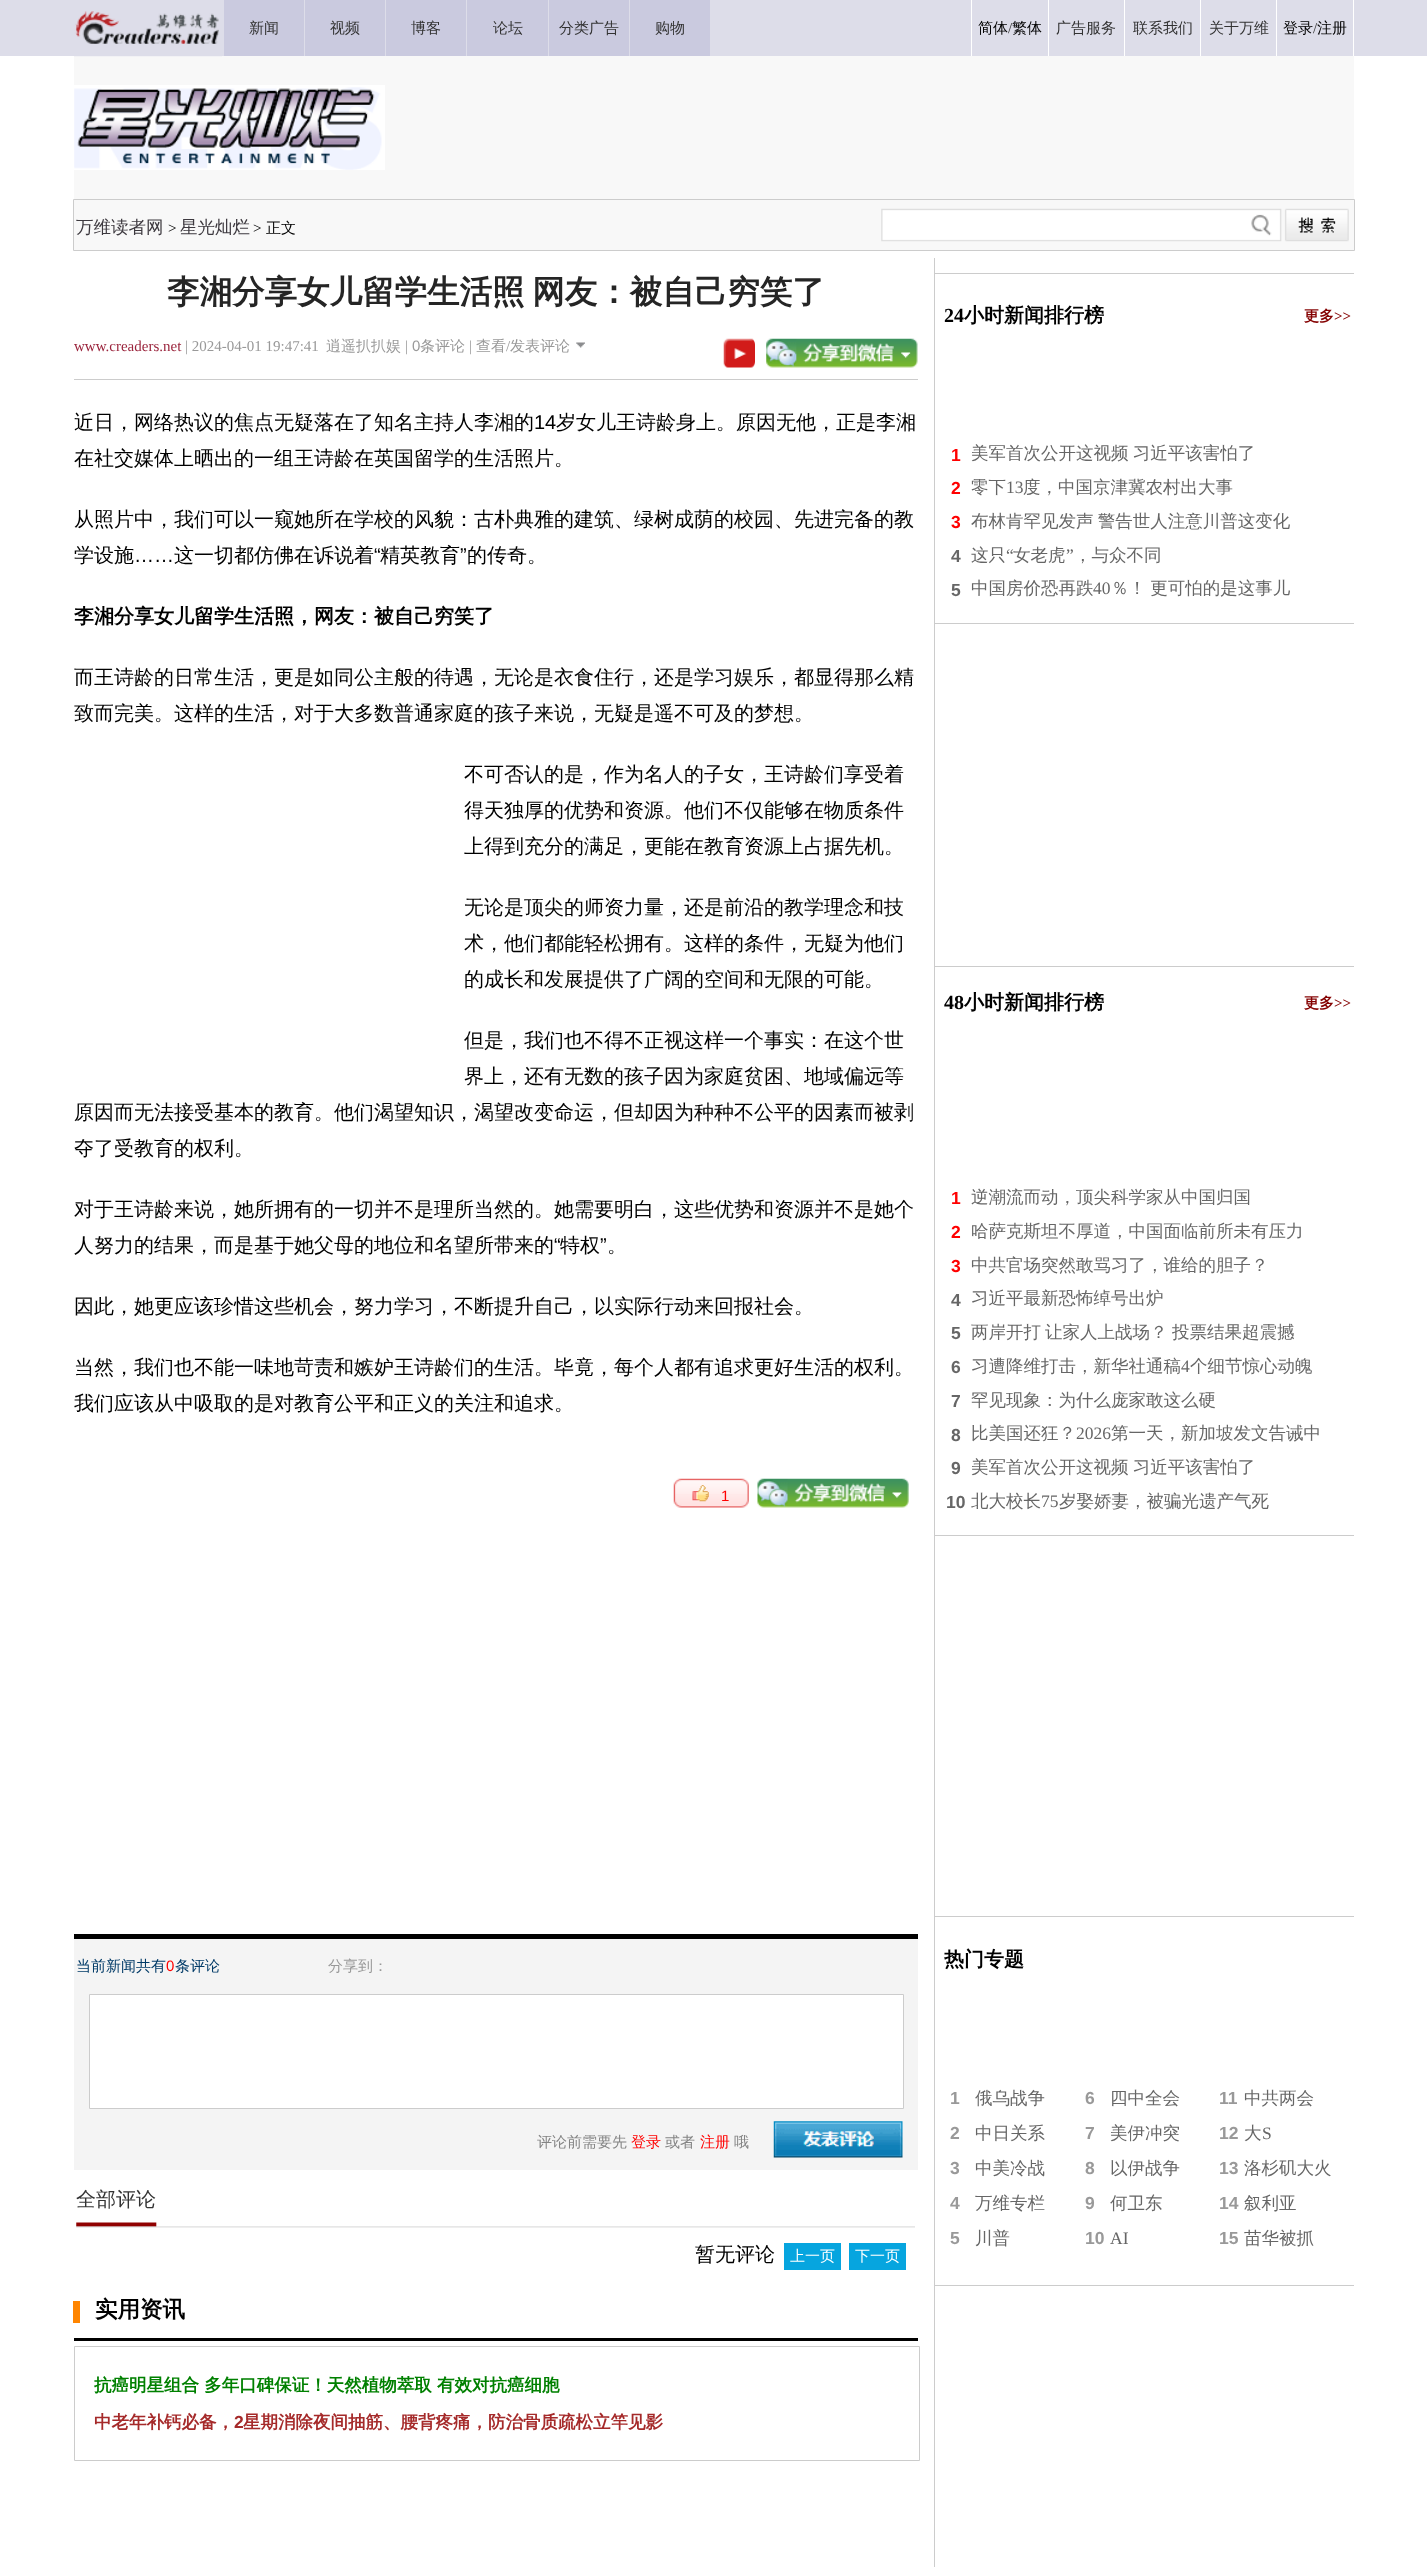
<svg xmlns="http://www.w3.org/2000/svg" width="1427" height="2567">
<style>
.a{font:500 15px WenQuanYi Zen Hei;fill:#333}
.b{font:500 15px WenQuanYi Zen Hei;fill:#000}
.c{font:15px Liberation Serif;fill:#333}
.d{font:500 17.5px WenQuanYi Zen Hei;fill:#3d393f}
.e{font:15px Liberation Serif;fill:#000}
.f{font:bold 32.5px WenQuanYi Zen Hei;fill:#252525}
.g{font:15px Liberation Serif;fill:#9b253d}
.h{font:15px Liberation Serif;fill:#999}
.i{font:500 15px WenQuanYi Zen Hei;fill:#999}
.j{font:15px Liberation Sans;fill:#999}
.k{font:500 20px WenQuanYi Zen Hei;fill:#000}
.l{font:20px Liberation Sans;fill:#000}
.m{font:bold 20px WenQuanYi Zen Hei;fill:#000}
.n{font:15px Liberation Sans;fill:#f00}
.o{font:500 15px WenQuanYi Zen Hei;fill:#003a67}
.p{font:500 15px WenQuanYi Zen Hei;fill:#848484}
.q{font:500 15px WenQuanYi Zen Hei;fill:#f00}
.r{font:500 20px WenQuanYi Zen Hei;fill:#333}
.s{font:500 15px WenQuanYi Zen Hei;fill:#fff}
.t{font:bold 22.5px WenQuanYi Zen Hei;fill:#000}
.u{font:bold 17.5px WenQuanYi Zen Hei;fill:#008000}
.v{font:bold 17.5px WenQuanYi Zen Hei;fill:#a52a2a}
.w{font:bold 17.5px Liberation Sans;fill:#a52a2a}
.x{font:bold 20px Liberation Serif;fill:#000}
.y{font:bold 15px WenQuanYi Zen Hei;fill:#840000}
.z{font:bold 15px Liberation Serif;fill:#840000}
.a1{font:bold 17.5px Liberation Sans;fill:#f00}
.b1{font:500 17.5px WenQuanYi Zen Hei;fill:#666}
.c1{font:17.5px Liberation Serif;fill:#666}
.d1{font:bold 17.5px Liberation Sans;fill:#666}
.e1{font:bold 17.5px Liberation Sans;fill:#999}
</style>
<rect width="100%" height="100%" fill="#fff"/>
<path fill="#dddde9" d="M0 0h1427v56H0z"/>
<path fill="#f8f8f8" d="M74 56h1280v143H74z"/>
<image href="1.png" x="74" y="11" width="148" height="46"/>
<path fill="#cacadf" d="M224 0h80v56H224z"/>
<path fill="#cacadf" d="M305 0h80v56H305z"/>
<path fill="#cacadf" d="M386 0h80v56H386z"/>
<path fill="#cacadf" d="M467 0h81v56H467z"/>
<path fill="#cacadf" d="M549 0h80v56H549z"/>
<path fill="#cacadf" d="M630 0h80v56H630z"/>
<path fill="#fff" d="M971 0h1v56H971z"/>
<path fill="#fff" d="M1048 0h1v56H1048z"/>
<path fill="#fff" d="M1124 0h1v56H1124z"/>
<path fill="#fff" d="M1200 0h1v56H1200z"/>
<path fill="#fff" d="M1353 0h1v56H1353z"/>
<path fill="#fff" d="M1276 0h1v56H1276z"/>
<image href="2.png" x="74" y="85" width="311" height="85"/>
<path fill="#f8f8f8" stroke="#ccc" d="M73.5 199.5h1281v51H73.5z"/>
<image href="3.png" x="881" y="208" width="468" height="34"/>
<image href="4.png" x="576" y="342" width="9" height="6"/>
<image href="5.png" x="723" y="338" width="32" height="30"/>
<image href="6.png" x="766" y="338" width="152" height="30"/>
<path fill="#ccc" d="M74 379h844v1H74z"/>
<image href="7.png" x="673" y="1478" width="76" height="30"/>
<image href="8.png" x="692" y="1485" width="17" height="17"/>
<image href="9.png" x="757" y="1478" width="152" height="30"/>
<path fill="#000" d="M74 1934h844v5H74z"/>
<path fill="#f4f4f4" d="M74 1939h844v231H74z"/>
<path fill="#fff" stroke="#ccc" d="M89.5 1994.5h814v114H89.5z"/>
<image href="10.png" x="773" y="2121" width="130" height="37"/>
<image href="11.png" x="76" y="2222" width="839" height="6"/>
<path fill="#06a5df" d="M784 2243h57v27H784z"/>
<path fill="#06a5df" d="M849 2243h57v27H849z"/>
<path fill="#000" d="M74 2338h844v3H74z"/>
<path fill="#ff8500" d="M73 2301h7v22H73z"/>
<path fill="none" stroke="#ccc" d="M74.5 2346.5h845v114H74.5z"/>
<path fill="#ccc" d="M934 258h1v2309H934z"/>
<path fill="#ccc" d="M935 273h419v1H935z"/>
<path fill="#ccc" d="M935 623h419v1H935z"/>
<path fill="#ccc" d="M935 966h419v1H935z"/>
<path fill="#ccc" d="M935 1535h419v1H935z"/>
<path fill="#ccc" d="M935 1916h419v1H935z"/>
<path fill="#ccc" d="M935 2285h419v1H935z"/>
<text class="a" x="249" y="33">新闻</text>
<text class="a" x="330" y="33">视频</text>
<text class="a" x="411" y="33">博客</text>
<text class="a" x="493" y="33">论坛</text>
<text class="a" x="559" y="33">分类广告</text>
<text class="a" x="655" y="33">购物</text>
<text class="b" x="978" y="33">简体</text>
<text class="c" x="1008" y="33">/</text>
<text class="b" x="1012" y="33">繁体</text>
<text class="a" x="1056" y="33">广告服务</text>
<text class="a" x="1133" y="33">联系我们</text>
<text class="a" x="1209" y="33">关于万维</text>
<text class="b" x="1283" y="33">登录</text>
<text class="c" x="1313" y="33">/</text>
<text class="b" x="1317" y="33">注册</text>
<text class="d" x="76" y="233">万维读者网</text>
<text class="e" x="168" y="233">&gt;</text>
<text class="d" x="180" y="233">星光灿烂</text>
<text class="e" x="253" y="233">&gt;</text>
<text class="b" x="266" y="233">正文</text>
<text class="f" x="167" y="303" word-spacing="-2">李湘分享女儿留学生活照 网友：被自己穷笑了</text>
<text class="g" x="74" y="351">www.creaders.net</text>
<text class="h" x="185" y="351">| 2024-04-01 19:47:41</text>
<text class="i" x="326" y="351">逍遥扒扒娱</text>
<text class="h" x="405" y="351">|</text>
<text class="j" x="412" y="351">0</text>
<text class="i" x="420" y="351">条评论</text>
<text class="h" x="469" y="351">|</text>
<text class="i" x="476" y="351">查看</text>
<text class="h" x="506" y="351">/</text>
<text class="i" x="510" y="351">发表评论</text>
<text class="k" x="74" y="429">近日，网络热议的焦点无疑落在了知名主持人李湘的</text>
<text class="l" x="534" y="429">14</text>
<text class="k" x="556" y="429">岁女儿王诗龄身上。原因无他，正是李湘</text>
<text class="k" x="74" y="465">在社交媒体上晒出的一组王诗龄在英国留学的生活照片。</text>
<text class="k" x="74" y="526">从照片中，我们可以一窥她所在学校的风貌：古朴典雅的建筑、绿树成荫的校园、先进完备的教</text>
<text class="k" x="74" y="562">学设施</text>
<text class="k" x="174" y="562">这一切都仿佛在诉说着</text>
<text class="l" x="374" y="562">“</text>
<text class="k" x="380" y="562">精英教育</text>
<text class="l" x="460" y="562">”</text>
<text class="k" x="467" y="562">的传奇。</text>
<text class="l" x="134" y="562">……</text>
<text class="m" x="74" y="623">李湘分享女儿留学生活照，网友：被自己穷笑了</text>
<text class="k" x="74" y="684">而王诗龄的日常生活，更是如同公主般的待遇，无论是衣食住行，还是学习娱乐，都显得那么精</text>
<text class="k" x="74" y="720">致而完美。这样的生活，对于大多数普通家庭的孩子来说，无疑是遥不可及的梦想。</text>
<text class="k" x="464" y="781">不可否认的是，作为名人的子女，王诗龄们享受着</text>
<text class="k" x="464" y="817">得天独厚的优势和资源。他们不仅能够在物质条件</text>
<text class="k" x="464" y="853">上得到充分的满足，更能在教育资源上占据先机。</text>
<text class="k" x="464" y="914">无论是顶尖的师资力量，还是前沿的教学理念和技</text>
<text class="k" x="464" y="950">术，他们都能轻松拥有。这样的条件，无疑为他们</text>
<text class="k" x="464" y="986">的成长和发展提供了广阔的空间和无限的可能。</text>
<text class="k" x="464" y="1047">但是，我们也不得不正视这样一个事实：在这个世</text>
<text class="k" x="464" y="1083">界上，还有无数的孩子因为家庭贫困、地域偏远等</text>
<text class="k" x="74" y="1119">原因而无法接受基本的教育。他们渴望知识，渴望改变命运，但却因为种种不公平的因素而被剥</text>
<text class="k" x="74" y="1155">夺了受教育的权利。</text>
<text class="k" x="74" y="1216">对于王诗龄来说，她所拥有的一切并不是理所当然的。她需要明白，这些优势和资源并不是她个</text>
<text class="k" x="74" y="1252">人努力的结果，而是基于她父母的地位和名望所带来的</text>
<text class="l" x="554" y="1252">“</text>
<text class="k" x="560" y="1252">特权</text>
<text class="l" x="600" y="1252">”</text>
<text class="k" x="607" y="1252">。</text>
<text class="k" x="74" y="1313">因此，她更应该珍惜这些机会，努力学习，不断提升自己，以实际行动来回报社会。</text>
<text class="k" x="74" y="1374">当然，我们也不能一味地苛责和嫉妒王诗龄们的生活。毕竟，每个人都有追求更好生活的权利。</text>
<text class="k" x="74" y="1410">我们应该从中吸取的是对教育公平和正义的关注和追求。</text>
<text class="n" x="721" y="1501">1</text>
<text class="o" x="76" y="1971">当前新闻共有</text>
<text class="n" x="166" y="1971">0</text>
<text class="o" x="175" y="1971">条评论</text>
<text class="i" x="328" y="1971">分享到：</text>
<text class="p" x="537" y="2147">评论前需要先</text>
<text class="q" x="631" y="2147">登录</text>
<text class="p" x="665" y="2147">或者</text>
<text class="q" x="700" y="2147">注册</text>
<text class="p" x="734" y="2147">哦</text>
<text class="r" x="76" y="2206">全部评论</text>
<text class="k" x="695" y="2261">暂无评论</text>
<text class="s" x="790" y="2261">上一页</text>
<text class="s" x="855" y="2261">下一页</text>
<text class="t" x="95" y="2317">实用资讯</text>
<text class="u" x="94" y="2391">抗癌明星组合 多年口碑保证！天然植物萃取 有效对抗癌细胞</text>
<text class="v" x="94" y="2428">中老年补钙必备，</text>
<text class="w" x="234" y="2428">2</text>
<text class="v" x="243" y="2428">星期消除夜间抽筋、腰背疼痛，防治骨质疏松立竿见影</text>
<text class="x" x="944" y="322">24</text>
<text class="m" x="964" y="322">小时新闻排行榜</text>
<text class="y" x="1304" y="321">更多</text>
<text class="z" x="1334" y="321">&gt;&gt;</text>
<text class="a1" x="951" y="461">1</text>
<text class="b1" x="971" y="459" word-spacing="-1">美军首次公开这视频 习近平该害怕了</text>
<text class="a1" x="951" y="494">2</text>
<text class="b1" x="971" y="493">零下</text>
<text class="c1" x="1006" y="493">13</text>
<text class="b1" x="1023" y="493">度，中国京津冀农村出大事</text>
<text class="a1" x="951" y="528">3</text>
<text class="b1" x="971" y="527" word-spacing="-1">布林肯罕见发声 警告世人注意川普这变化</text>
<text class="d1" x="951" y="562">4</text>
<text class="b1" x="971" y="561">这只</text>
<text class="c1" x="1006" y="561">“</text>
<text class="b1" x="1013" y="561">女老虎</text>
<text class="c1" x="1066" y="561">”</text>
<text class="b1" x="1074" y="561">，与众不同</text>
<text class="d1" x="951" y="596">5</text>
<text class="b1" x="971" y="594">中国房价恐再跌</text>
<text class="c1" x="1093" y="594">40</text>
<text class="b1" x="1111" y="594" word-spacing="-1">％！ 更可怕的是这事儿</text>
<text class="x" x="944" y="1009">48</text>
<text class="m" x="964" y="1009">小时新闻排行榜</text>
<text class="y" x="1304" y="1008">更多</text>
<text class="z" x="1334" y="1008">&gt;&gt;</text>
<text class="a1" x="951" y="1204">1</text>
<text class="b1" x="971" y="1203">逆潮流而动，顶尖科学家从中国归国</text>
<text class="a1" x="951" y="1238">2</text>
<text class="b1" x="971" y="1237">哈萨克斯坦不厚道，中国面临前所未有压力</text>
<text class="a1" x="951" y="1272">3</text>
<text class="b1" x="971" y="1271">中共官场突然敢骂习了，谁给的胆子？</text>
<text class="d1" x="951" y="1306">4</text>
<text class="b1" x="971" y="1304">习近平最新恐怖绰号出炉</text>
<text class="d1" x="951" y="1339">5</text>
<text class="b1" x="971" y="1338">两岸开打</text>
<text class="b1" x="1045" y="1338">让家人上战场？</text>
<text class="b1" x="1172" y="1338">投票结果超震撼</text>
<text class="d1" x="951" y="1373">6</text>
<text class="b1" x="971" y="1372">习遭降维打击，新华社通稿</text>
<text class="c1" x="1181" y="1372">4</text>
<text class="b1" x="1190" y="1372">个细节惊心动魄</text>
<text class="d1" x="951" y="1407">7</text>
<text class="b1" x="971" y="1406">罕见现象：为什么庞家敢这么硬</text>
<text class="d1" x="951" y="1441">8</text>
<text class="b1" x="971" y="1439">比美国还狂？</text>
<text class="c1" x="1076" y="1439">2026</text>
<text class="b1" x="1111" y="1439">第一天，新加坡发文告诫中</text>
<text class="d1" x="951" y="1474">9</text>
<text class="b1" x="971" y="1473" word-spacing="-1">美军首次公开这视频 习近平该害怕了</text>
<text class="d1" x="946" y="1508">10</text>
<text class="b1" x="971" y="1507">北大校长</text>
<text class="c1" x="1041" y="1507">75</text>
<text class="b1" x="1059" y="1507">岁娶娇妻，被骗光遗产气死</text>
<text class="m" x="944" y="1966">热门专题</text>
<text class="e1" x="950" y="2104">1</text>
<text class="b1" x="975" y="2104">俄乌战争</text>
<text class="e1" x="1085" y="2104">6</text>
<text class="b1" x="1110" y="2104">四中全会</text>
<text class="e1" x="1219" y="2104">11</text>
<text class="b1" x="1244" y="2104">中共两会</text>
<text class="e1" x="950" y="2139">2</text>
<text class="b1" x="975" y="2139">中日关系</text>
<text class="e1" x="1085" y="2139">7</text>
<text class="b1" x="1110" y="2139">美伊冲突</text>
<text class="e1" x="1219" y="2139">12</text>
<text class="b1" x="1244" y="2139">大</text>
<text class="c1" x="1262" y="2139">S</text>
<text class="e1" x="950" y="2174">3</text>
<text class="b1" x="975" y="2174">中美冷战</text>
<text class="e1" x="1085" y="2174">8</text>
<text class="b1" x="1110" y="2174">以伊战争</text>
<text class="e1" x="1219" y="2174">13</text>
<text class="b1" x="1244" y="2174">洛杉矶大火</text>
<text class="e1" x="950" y="2209">4</text>
<text class="b1" x="975" y="2209">万维专栏</text>
<text class="e1" x="1085" y="2209">9</text>
<text class="b1" x="1110" y="2209">何卫东</text>
<text class="e1" x="1219" y="2209">14</text>
<text class="b1" x="1244" y="2209">叙利亚</text>
<text class="e1" x="950" y="2244">5</text>
<text class="b1" x="975" y="2244">川普</text>
<text class="e1" x="1085" y="2244">10</text>
<text class="c1" x="1110" y="2244">AI</text>
<text class="e1" x="1219" y="2244">15</text>
<text class="b1" x="1244" y="2244">苗华被抓</text>
</svg>
